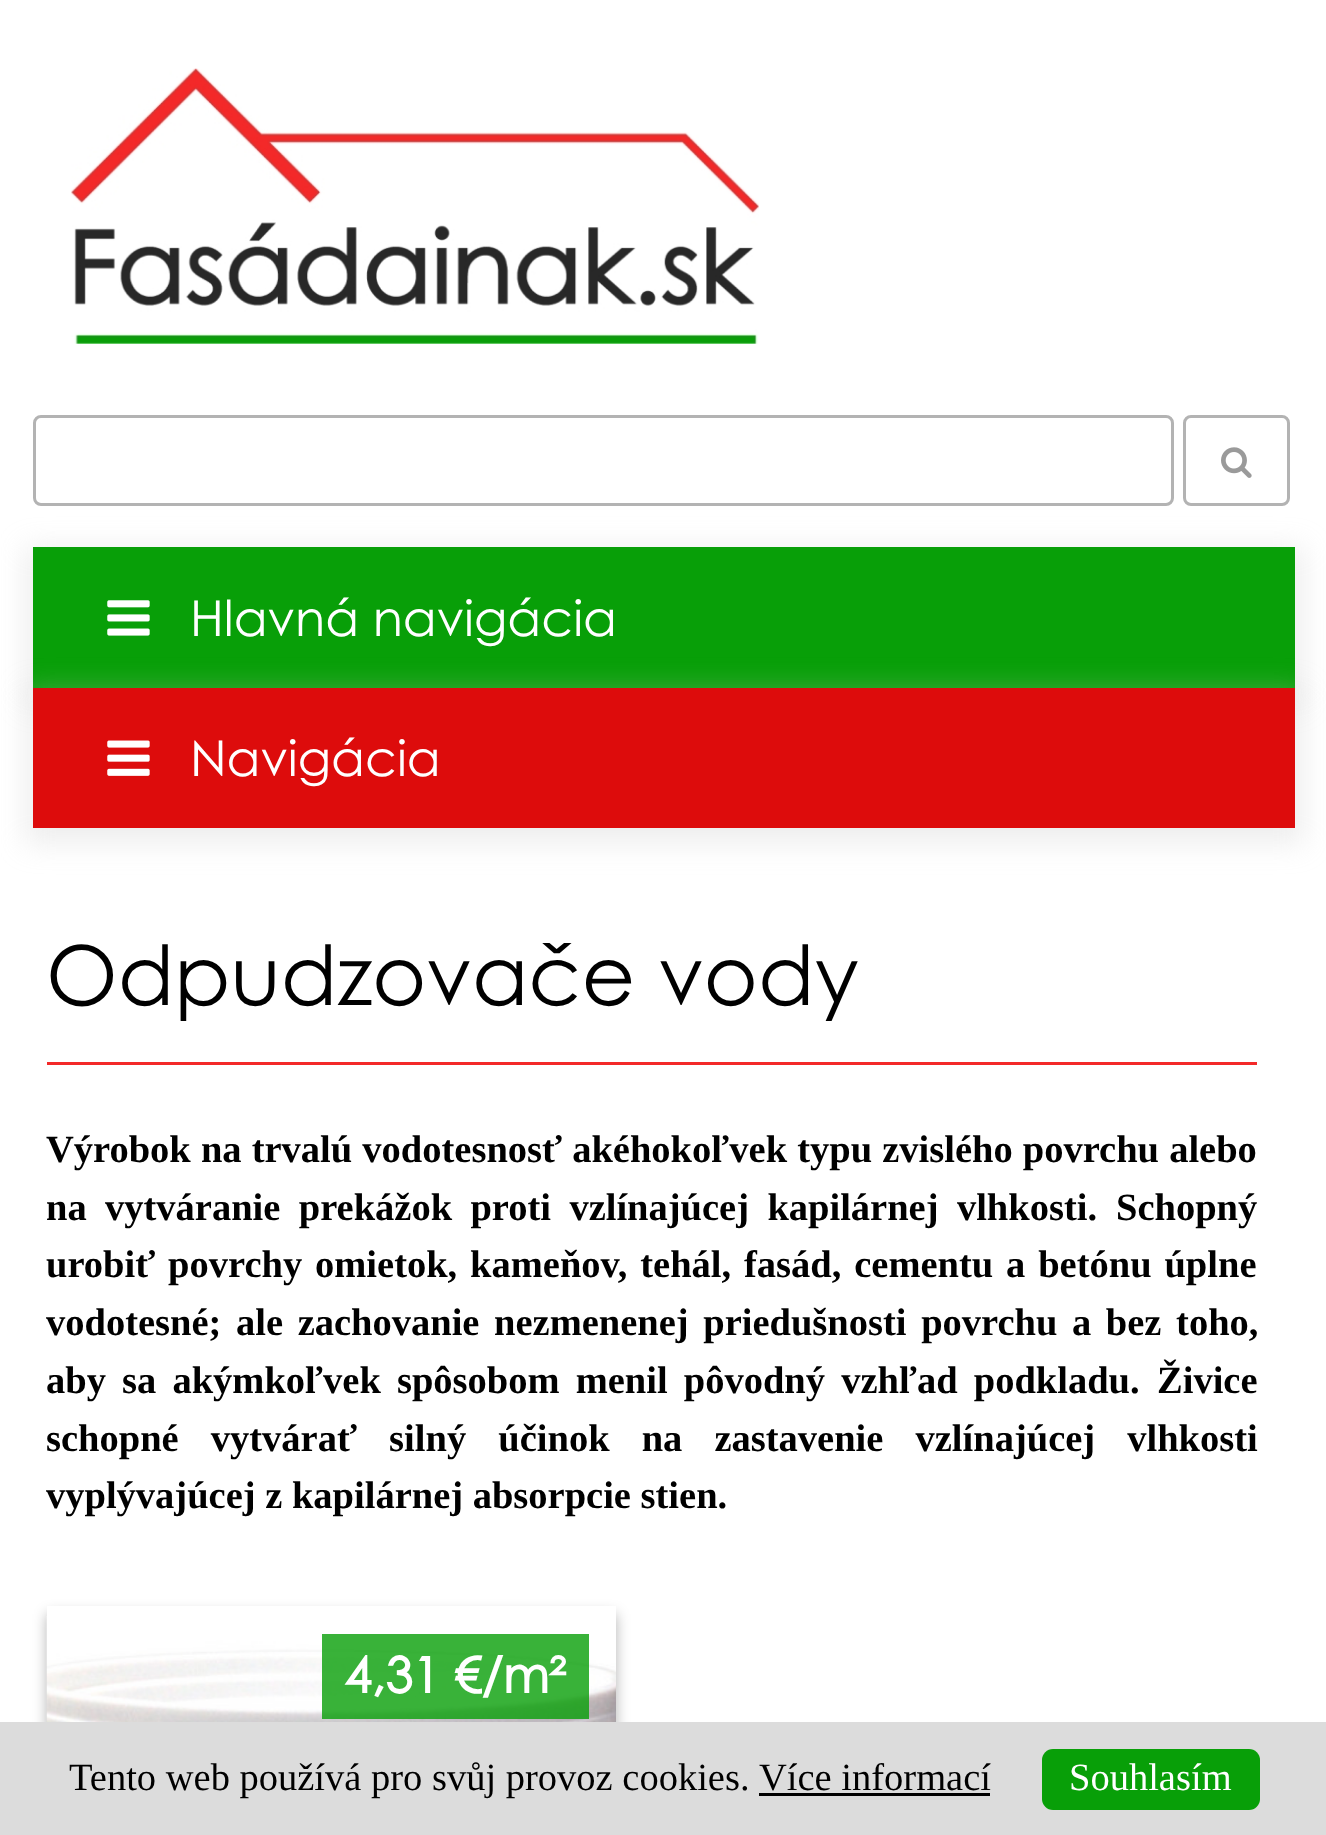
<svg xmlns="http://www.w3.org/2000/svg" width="1326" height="1835">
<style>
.a{font:49.5px Century Gothic;fill:#fff}
.b{font:82.5px Century Gothic;fill:#000}
.c{font:bold 38.5px Liberation Serif;fill:#000}
.d{font:bold 49.5px Century Gothic;fill:#fff}
.e{font:38.5px Liberation Serif;fill:#000}
.f{font:38.5px Liberation Serif;fill:#fff}
</style>
<defs>
<clipPath id="clip1"><path d="M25 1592h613v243h-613zm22 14h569v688h-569z" clip-rule="evenodd"/></clipPath>
</defs>
<rect width="100%" height="100%" fill="#fff"/>
<image href="1.png" x="71" y="68" width="688" height="276"/>
<path fill="#c8c8c84d" filter="blur(14px)" d="M25 547h1279v157H25z"/>
<rect fill="none" stroke="#b3b3b3" stroke-width="3" x="34.5" y="416.5" width="1138" height="88" rx="6.5"/>
<rect fill="none" stroke="#b3b3b3" stroke-width="3" x="1184.5" y="416.5" width="104" height="88" rx="6.5"/>
<image href="2.png" x="1221" y="447" width="31" height="31"/>
<path fill="#089f08" d="M33 547h1262v141H33z"/>
<image href="3.png" x="107" y="600" width="43" height="36"/>
<path fill="#c8c8c84d" filter="blur(14px)" d="M25 688h1279v156H25z"/>
<path fill="#dd0c0c" d="M33 688h1262v140H33z"/>
<image href="4.png" x="107" y="740" width="43" height="36"/>
<path fill="#f32929" d="M47 1062h1210v3H47z"/>
<g clip-path="url(#clip1)">
<path fill="#0000004d" filter="blur(7px)" d="M47 1614h569v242H47z"/>
</g>
<image href="5.png" x="46" y="1616" width="570" height="106"/>
<path fill="#089f08cc" d="M322 1634h267v85H322z"/>
<path fill="#dcdcdc" d="M0 1722h1326v113H0z"/>
<path fill="#000" d="M759 1793h231v3H759z"/>
<rect fill="#089f08" x="1042" y="1749" width="218" height="61" rx="11"/>
<text class="a" x="190" y="636">Hlavná navigácia</text>
<text class="a" x="190" y="776">Navigácia</text>
<text class="b" x="46" y="1005">Odpudzovače vody</text>
<text class="c" x="46" y="1162" word-spacing="0.5">Výrobok na trvalú vodotesnosť akéhokoľvek typu zvislého povrchu alebo</text>
<text class="c" x="46" y="1220" word-spacing="8.75">na vytváranie prekážok proti vzlínajúcej kapilárnej vlhkosti.</text>
<text class="c" x="1116" y="1220">Schopný</text>
<text class="c" x="46" y="1277" word-spacing="3.25">urobiť povrchy omietok, kameňov, tehál, fasád, cementu a betónu úplne</text>
<text class="c" x="46" y="1335">vodotesné;</text>
<text class="c" x="236" y="1335" word-spacing="5">ale zachovanie nezmenenej priedušnosti povrchu a bez toho,</text>
<text class="c" x="46" y="1393" word-spacing="6.5">aby sa akýmkoľvek spôsobom menil pôvodný vzhľad podkladu.</text>
<text class="c" x="1157" y="1393">Živice</text>
<text class="c" x="46" y="1451" word-spacing="22.5">schopné vytvárať silný účinok na zastavenie vzlínajúcej vlhkosti</text>
<text class="c" x="46" y="1508">vyplývajúcej z kapilárnej absorpcie stien.</text>
<text class="d" x="344" y="1693">4,31 €/m²</text>
<text class="e" x="69" y="1790">Tento web používá pro svůj provoz cookies.</text>
<text class="e" x="759" y="1790">Více informací</text>
<text class="f" x="1069" y="1790">Souhlasím</text>
</svg>
